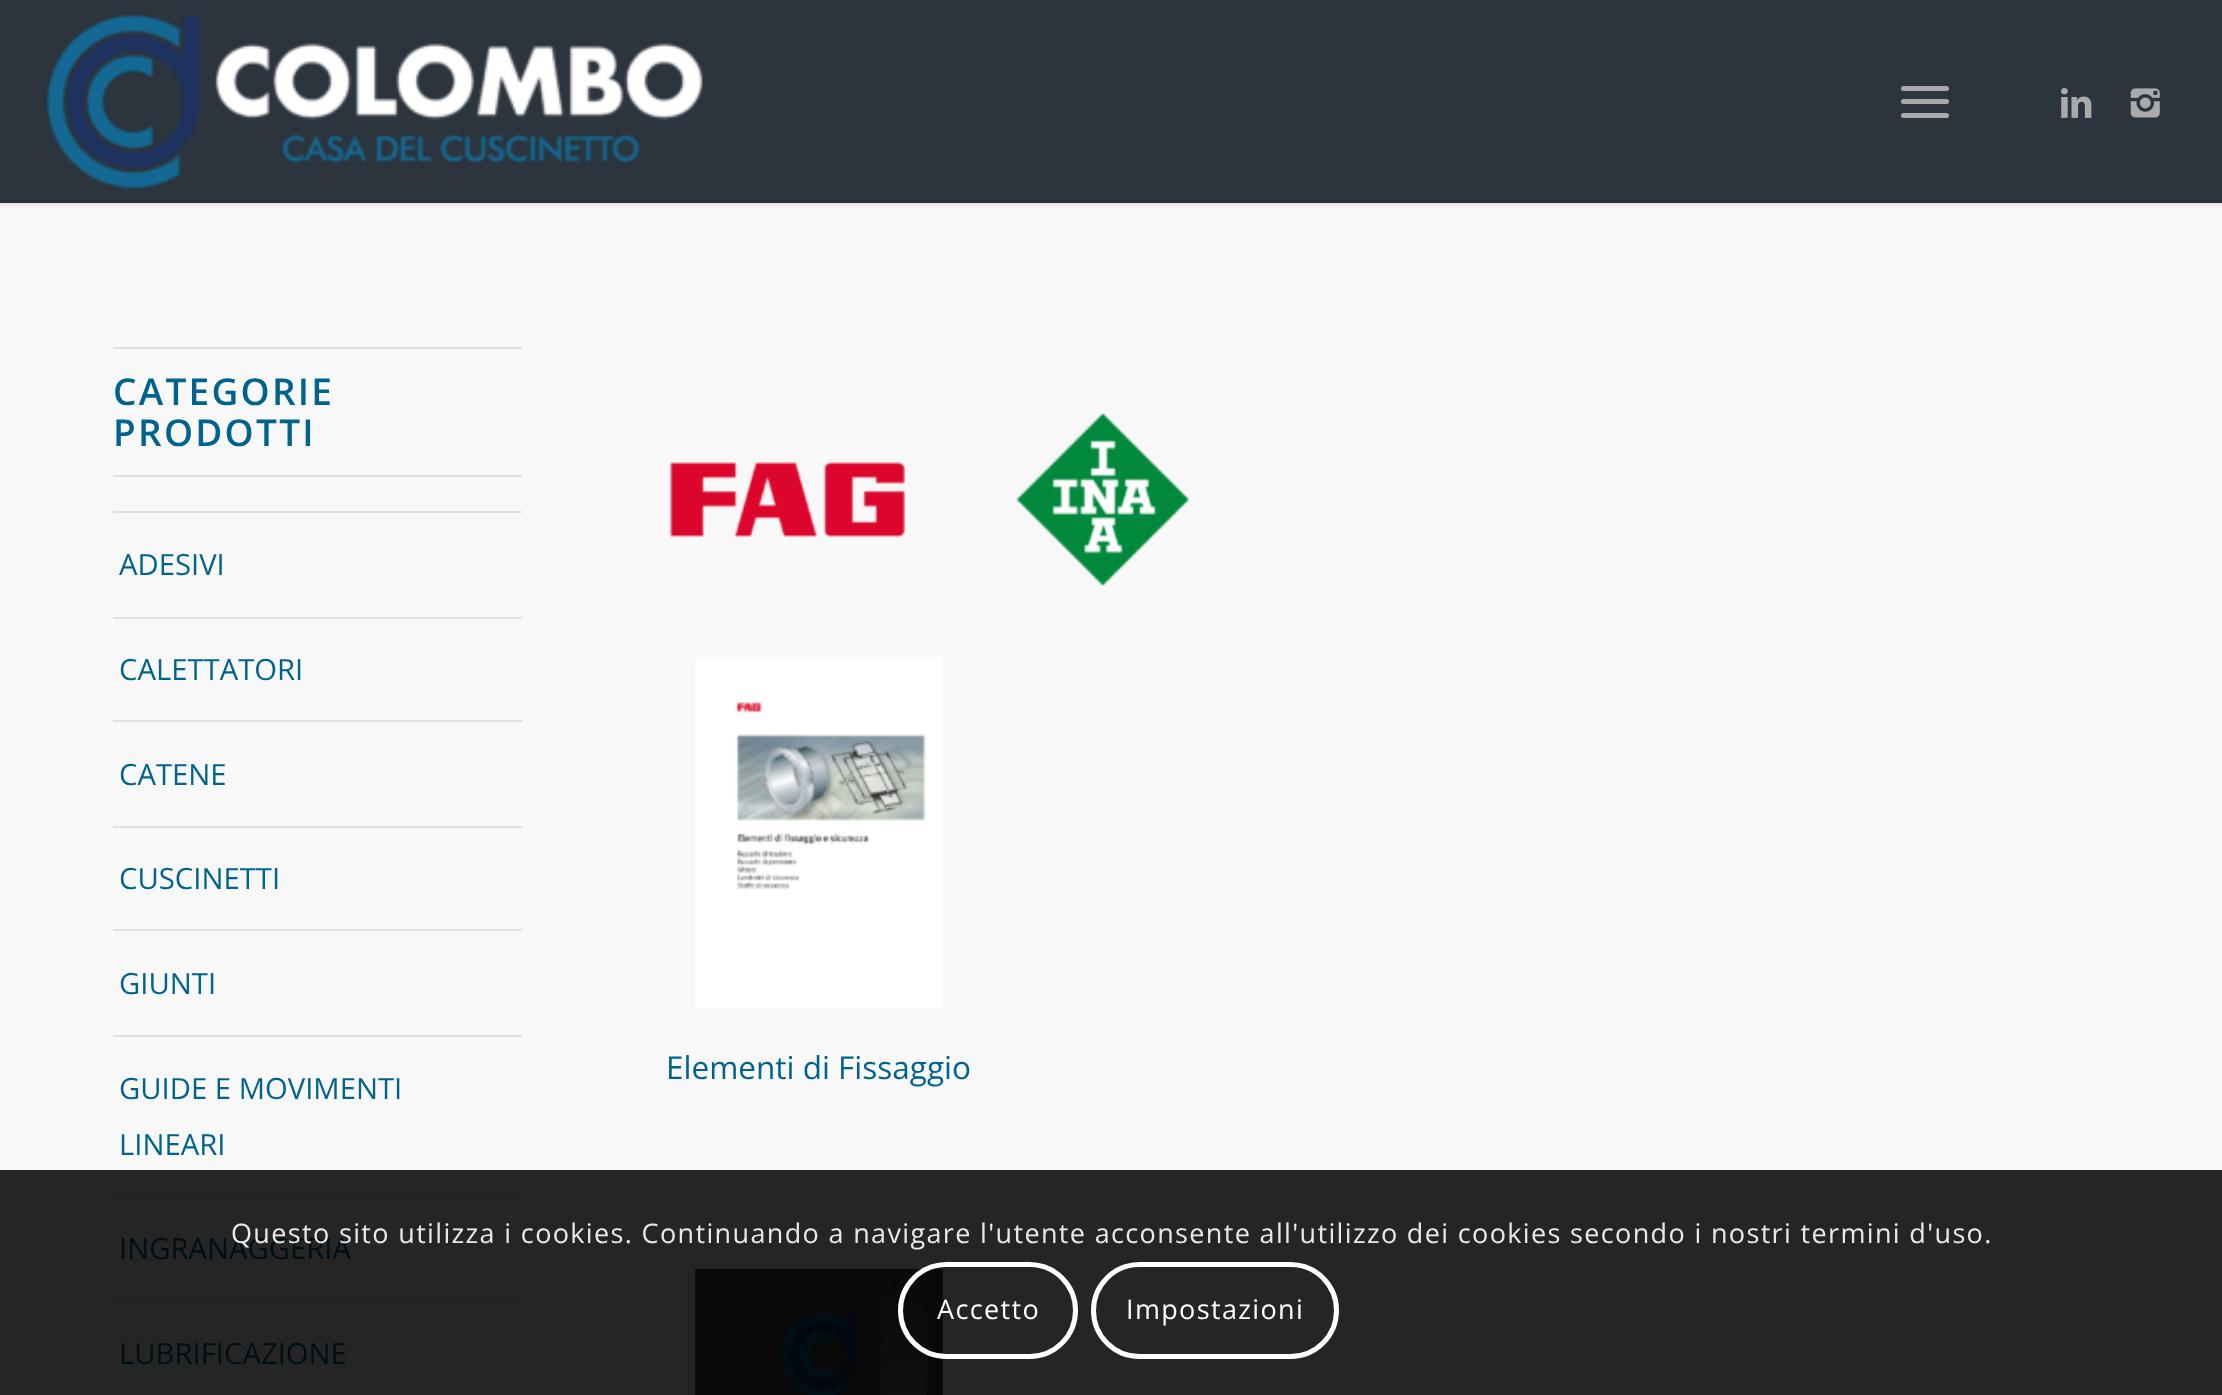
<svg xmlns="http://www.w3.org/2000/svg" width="2222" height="1395">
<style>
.a{font:600 37px Open Sans;letter-spacing:2.25px;fill:#00638e}
.b{font:29.25px Open Sans;fill:#00638e}
.c{font:29.25px Open Sans;fill:#000f15}
.d{font:31.5px Open Sans;fill:#00638e}
.e{font:27px Open Sans;letter-spacing:1.35px;fill:#e9e9e9}
.f{font:27px Open Sans;letter-spacing:1.35px;fill:#fff}
</style>
<rect width="100%" height="100%" fill="#f8f8f8"/>
<path fill="#0000001a" filter="blur(2px)" d="M-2 -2h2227v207H-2z"/>
<path fill="#2c353d" d="M0 0h2222v203H0z"/>
<image href="1.png" x="46" y="14" width="657" height="176"/>
<rect fill="#aaa" x="1901" y="99" width="48" height="5" rx="2.5"/>
<rect fill="#aaa" x="1901" y="86" width="48" height="5" rx="2.5"/>
<rect fill="#aaa" x="1901" y="113" width="48" height="5" rx="2.5"/>
<image href="2.png" x="2061" y="88" width="31" height="30"/>
<image href="3.png" x="2130" y="88" width="30" height="30"/>
<path fill="#252525" d="M0 1170h2222v225H0z"/>
<path fill="#e1e1e1" d="M113 347h409v2H113z"/>
<path fill="#e1e1e1" d="M113 475h409v2H113z"/>
<path fill="#e1e1e1" d="M113 511h409v2H113z"/>
<path fill="#e1e1e1" d="M113 617h409v2H113z"/>
<path fill="#e1e1e1" d="M113 720h409v2H113z"/>
<path fill="#e1e1e1" d="M113 826h409v2H113z"/>
<path fill="#e1e1e1" d="M113 929h409v2H113z"/>
<path fill="#e1e1e1" d="M113 1035h409v2H113z"/>
<path fill="#222" d="M113 1195h409v2H113z"/>
<path fill="#222" d="M113 1301h409v2H113z"/>
<image href="4.png" x="670" y="461" width="236" height="77"/>
<image href="5.png" x="1016" y="413" width="173" height="173"/>
<image href="6.png" x="695" y="657" width="248" height="351"/>
<image href="7.png" x="695" y="1269" width="248" height="126"/>
<rect fill="none" stroke="#fff" stroke-width="5" x="900.5" y="1264.5" width="175" height="92" rx="46"/>
<rect fill="none" stroke="#fff" stroke-width="5" x="1093.5" y="1264.5" width="243" height="92" rx="46"/>
<text class="a" x="113" y="405">CATEGORIE</text>
<text class="a" x="113" y="446">PRODOTTI</text>
<text class="b" x="119" y="575">ADESIVI</text>
<text class="b" x="119" y="680">CALETTATORI</text>
<text class="b" x="119" y="785">CATENE</text>
<text class="b" x="119" y="889">CUSCINETTI</text>
<text class="b" x="119" y="994">GIUNTI</text>
<text class="b" x="119" y="1099">GUIDE E MOVIMENTI</text>
<text class="b" x="119" y="1155">LINEARI</text>
<text class="c" x="119" y="1259">INGRANAGGERIA</text>
<text class="c" x="119" y="1364">LUBRIFICAZIONE</text>
<text class="d" x="666" y="1079">Elementi di Fissaggio</text>
<text class="e" x="231" y="1243">Questo sito utilizza i cookies. Continuando a navigare l'utente acconsente all'utilizzo dei cookies secondo i nostri termini d'uso.</text>
<text class="f" x="937" y="1319">Accetto</text>
<text class="f" x="1126" y="1319">Impostazioni</text>
</svg>
